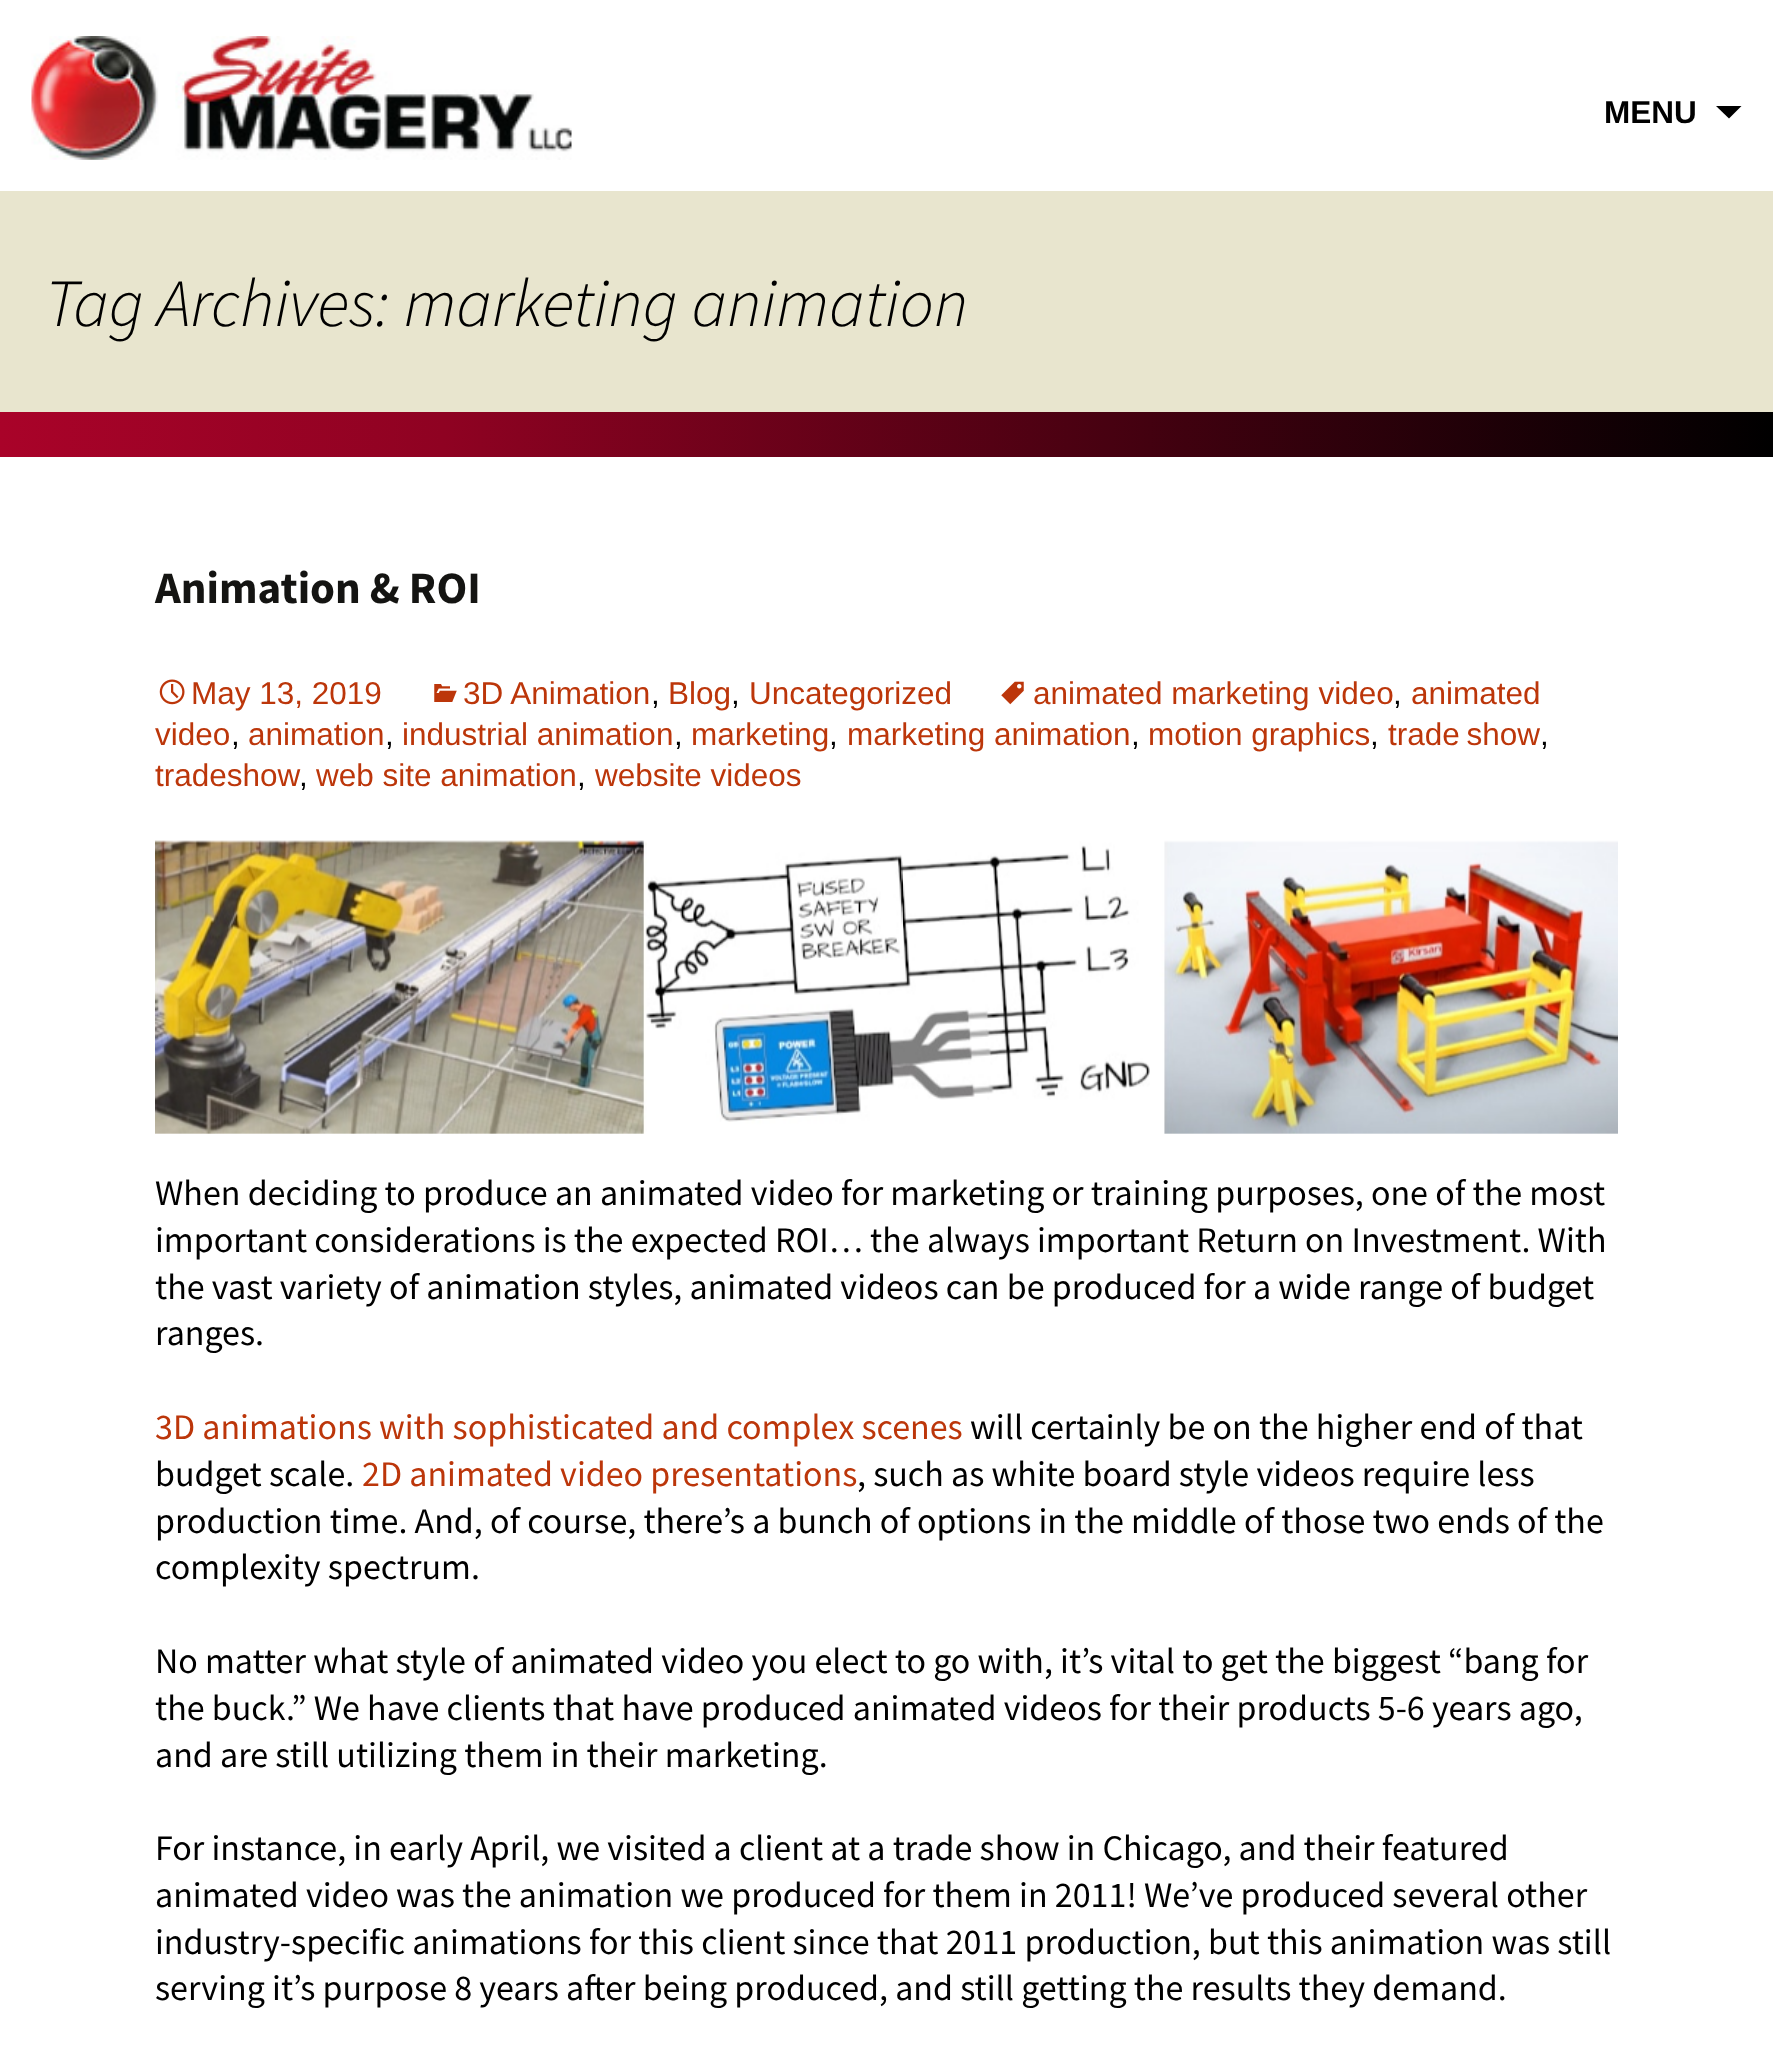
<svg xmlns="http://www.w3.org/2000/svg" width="1773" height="2046">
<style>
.a{font:bold 31.5px Liberation Sans;fill:#000}
.b{font:italic 300 67.5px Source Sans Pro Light;fill:#000}
.c{font:bold 45px Source Sans Pro;fill:#141412}
.d{font:31.5px Liberation Sans;fill:#bc360a}
.e{font:31.5px Liberation Sans;fill:#000}
.f{font:36px Source Sans Pro;fill:#000}
.g{font:36px Source Sans Pro;fill:#bc360a}
</style>
<defs>
<linearGradient id="g1" gradientUnits="userSpaceOnUse" x1="0" y1="1517" x2="1773" y2="1517"><stop offset="0" stop-color="#a90329"/><stop offset="0.25" stop-color="#8f0222"/><stop offset="1" stop-color="#000"/></linearGradient>
</defs>
<rect width="100%" height="100%" fill="#fff"/>
<image href="1.png" x="31" y="36" width="541" height="124"/>
<path fill="#000" d="M1716 106l13 12.5l12.5-12.5z"/>
<path fill="#e8e5ce" d="M0 191h1773v221H0z"/>
<path fill="url(#g1)" d="M0 412h1773v45H0z"/>
<image href="2.png" x="1001" y="681" width="23" height="24"/>
<image href="3.png" x="159" y="679" width="26" height="26"/>
<image href="4.png" x="434" y="684" width="23" height="18"/>
<image href="5.png" x="155" y="840" width="1463" height="294"/>
<text class="a" x="1604" y="123">MENU</text>
<text class="b" x="45" y="326">Tag Archives: marketing animation</text>
<text class="c" x="155" y="603">Animation &amp; ROI</text>
<text class="d" x="1033" y="704">animated marketing video</text>
<text class="e" x="1393" y="704">,</text>
<text class="d" x="1411" y="704">animated</text>
<text class="d" x="155" y="745">video</text>
<text class="e" x="231" y="745">,</text>
<text class="d" x="248" y="745">animation</text>
<text class="e" x="385" y="745">,</text>
<text class="d" x="402" y="745">industrial animation</text>
<text class="e" x="674" y="745">,</text>
<text class="d" x="691" y="745">marketing</text>
<text class="e" x="829" y="745">,</text>
<text class="d" x="847" y="745">marketing animation</text>
<text class="e" x="1131" y="745">,</text>
<text class="d" x="1148" y="745">motion graphics</text>
<text class="e" x="1370" y="745">,</text>
<text class="d" x="1388" y="745" word-spacing="-2">trade show</text>
<text class="e" x="1540" y="745">,</text>
<text class="d" x="155" y="786">tradeshow</text>
<text class="e" x="299" y="786">,</text>
<text class="d" x="316" y="786">web site animation</text>
<text class="e" x="577" y="786">,</text>
<text class="d" x="595" y="786">website videos</text>
<text class="d" x="191" y="704">May 13, 2019</text>
<text class="d" x="463" y="704">3D Animation</text>
<text class="e" x="651" y="704">,</text>
<text class="d" x="668" y="704">Blog</text>
<text class="e" x="731" y="704">,</text>
<text class="d" x="749" y="704">Uncategorized</text>
<text class="f" x="155" y="1205">When deciding to produce an animated video for marketing or training purposes, one of the most</text>
<text class="f" x="155" y="1252">important considerations is the expected ROI… the always important Return on Investment. With</text>
<text class="f" x="155" y="1299">the vast variety of animation styles, animated videos can be produced for a wide range of budget</text>
<text class="f" x="155" y="1345">ranges.</text>
<text class="g" x="155" y="1439">3D animations with sophisticated and complex scenes</text>
<text class="f" x="970" y="1439">will certainly be on the higher end of that</text>
<text class="f" x="155" y="1486">budget scale.</text>
<text class="g" x="362" y="1486">2D animated video presentations</text>
<text class="f" x="857" y="1486">, such as white board style videos require less</text>
<text class="f" x="155" y="1533">production time. And, of course, there’s a bunch of options in the middle of those two ends of the</text>
<text class="f" x="155" y="1579">complexity spectrum.</text>
<text class="f" x="155" y="1673">No matter what style of animated video you elect to go with, it’s vital to get the biggest “bang for</text>
<text class="f" x="155" y="1720">the buck.” We have clients that have produced animated videos for their products 5-6 years ago,</text>
<text class="f" x="155" y="1767">and are still utilizing them in their marketing.</text>
<text class="f" x="155" y="1860">For instance, in early April, we visited a client at a trade show in Chicago, and their featured</text>
<text class="f" x="155" y="1907">animated video was the animation we produced for them in 2011! We’ve produced several other</text>
<text class="f" x="155" y="1954">industry-specific animations for this client since that 2011 production, but this animation was still</text>
<text class="f" x="155" y="2000">serving it’s purpose 8 years after being produced, and still getting the results they demand.</text>
</svg>
